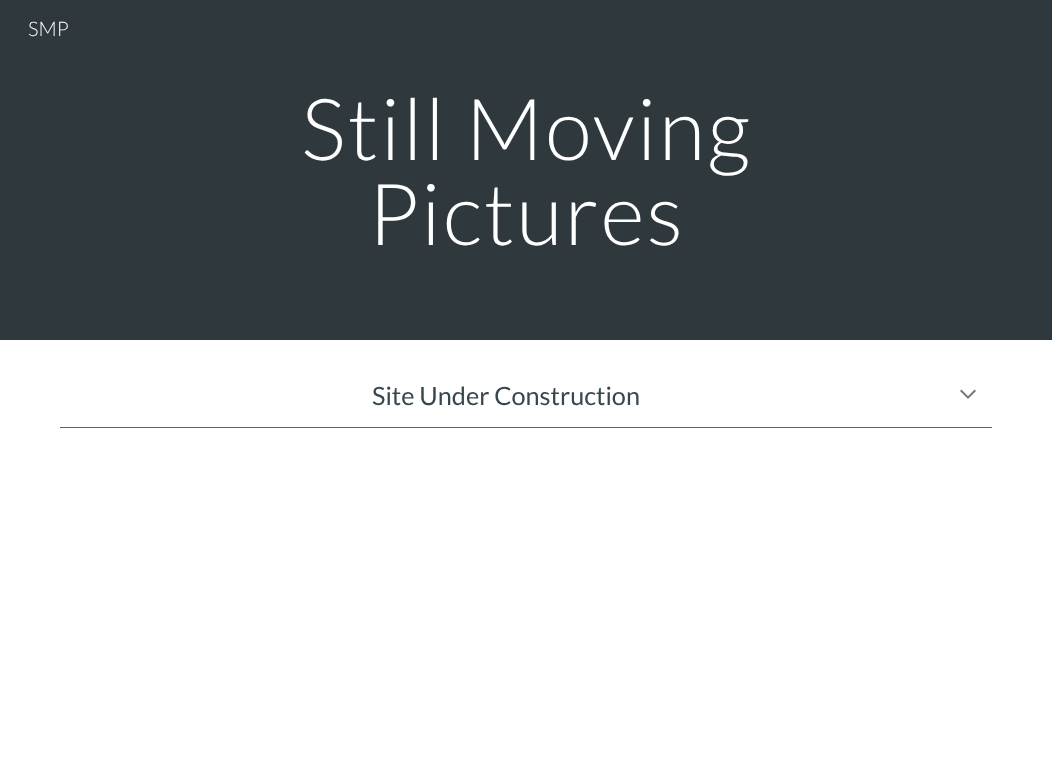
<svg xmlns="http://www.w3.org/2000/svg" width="1052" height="773">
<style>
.a{font:300 20px Lato;fill:#fff}
.b{font:300 85.5px Lato;letter-spacing:2px;fill:#fff}
.c{font:25.25px Lato;fill:#37474f}
</style>
<rect width="100%" height="100%" fill="#fff"/>
<path fill="#2e383d" d="M0 0h1052v340H0z"/>
<path fill="#5f6368" d="M60 427h932v1H60z"/>
<image href="1.png" x="960" y="389" width="16" height="10"/>
<text class="a" x="28" y="36">SMP</text>
<text class="b" x="301" y="160">Still Moving</text>
<text class="b" x="368" y="245">Pictures</text>
<text class="c" x="372" y="405">Site Under Construction</text>
</svg>
